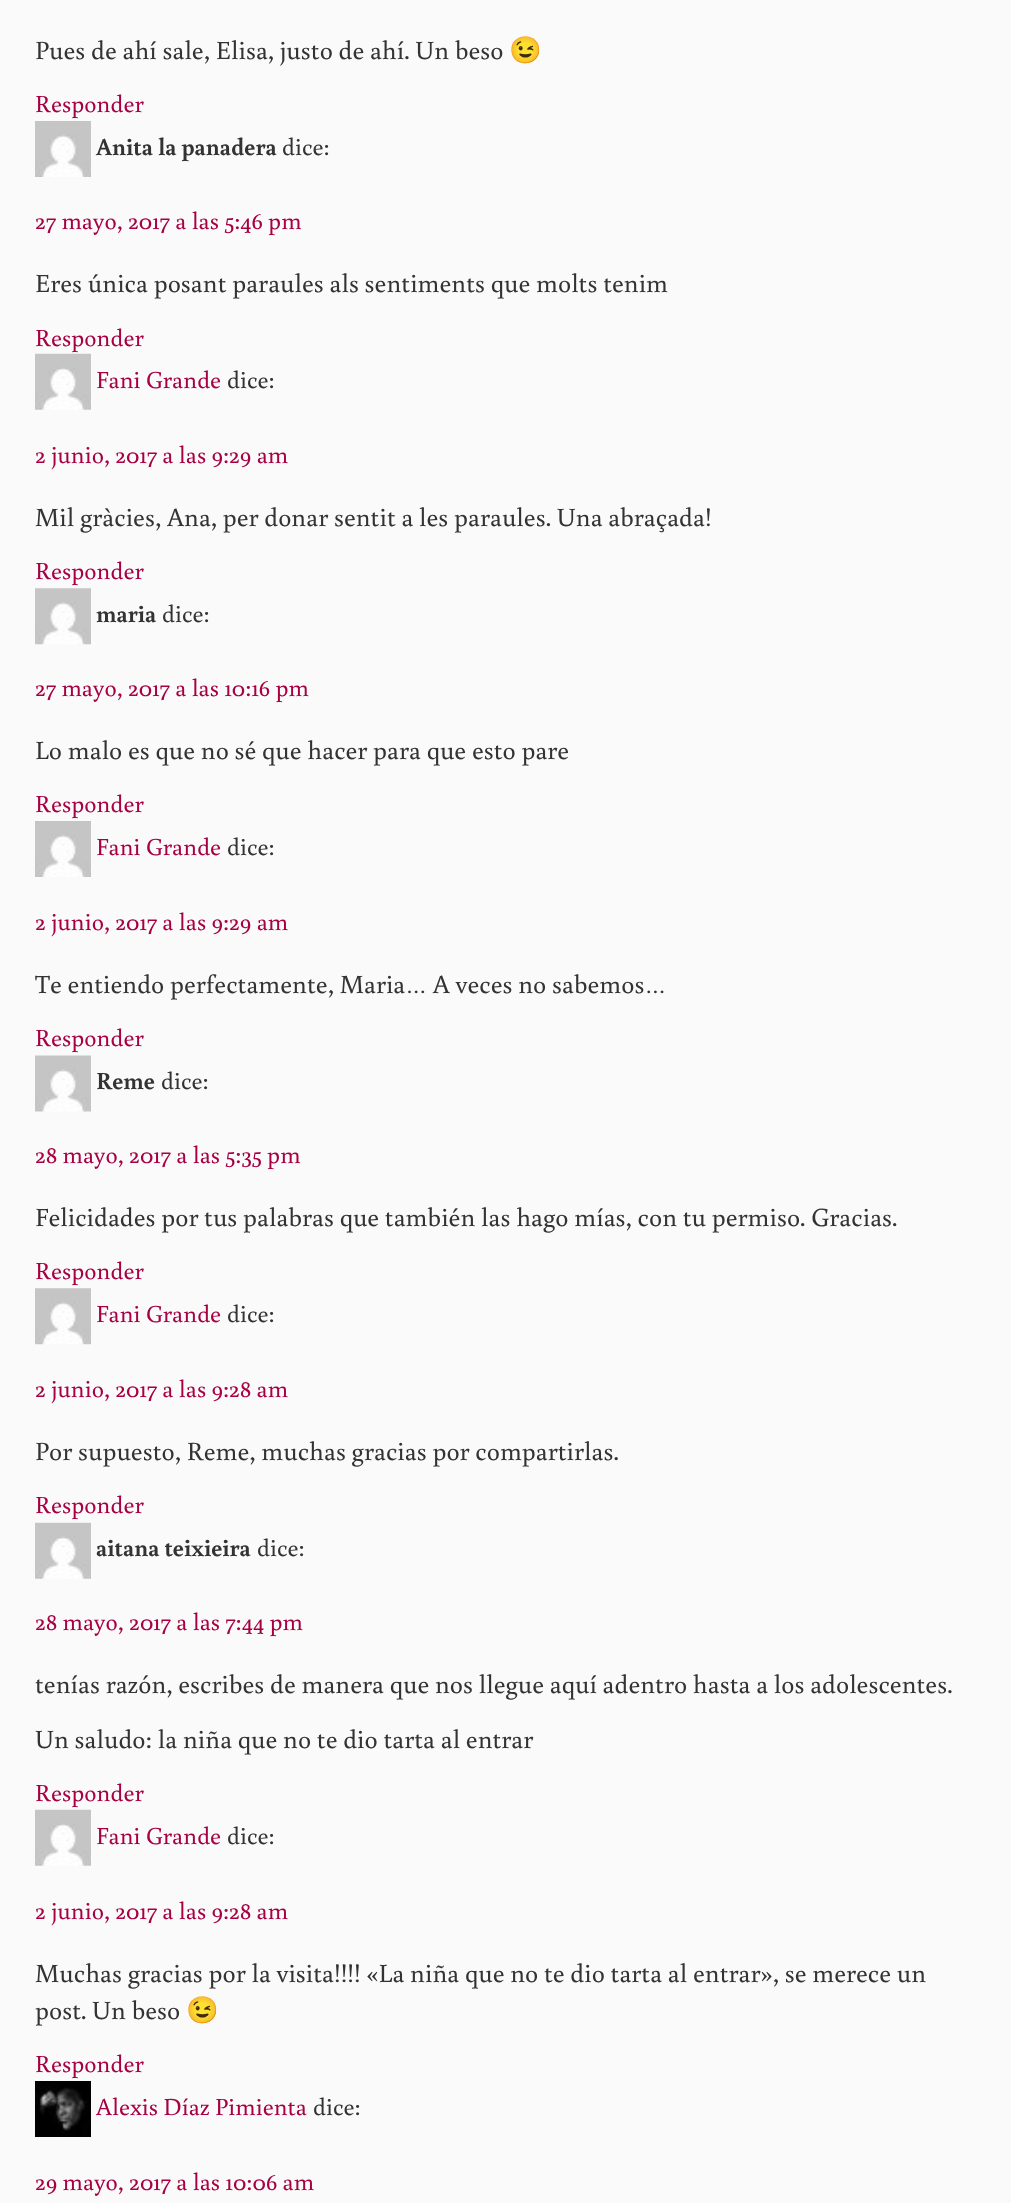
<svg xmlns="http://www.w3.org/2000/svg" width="1011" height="2203">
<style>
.a{font:26.25px Buenard;fill:#333}
.b{font:26.25px Noto Color Emoji;fill:#333}
.c{font:24.5px Buenard;fill:#a70043}
.d{font:bold 24.5px Buenard;fill:#333}
.e{font:24.5px Buenard;fill:#333}
</style>
<rect width="100%" height="100%" fill="#fafafa"/>
<image href="1.png" x="35" y="121" width="56" height="56"/>
<image href="2.png" x="35" y="353" width="56" height="57"/>
<image href="3.png" x="35" y="588" width="56" height="57"/>
<image href="1.png" x="35" y="821" width="56" height="56"/>
<image href="4.png" x="35" y="1055" width="56" height="57"/>
<image href="3.png" x="35" y="1288" width="56" height="57"/>
<image href="2.png" x="35" y="1522" width="56" height="57"/>
<image href="2.png" x="35" y="1809" width="56" height="57"/>
<image href="5.png" x="35" y="2081" width="56" height="56"/>
<text class="a" x="35" y="59">Pues de ahí sale, Elisa, justo de ahí. Un beso</text>
<text class="b" x="509" y="59">😉</text>
<text class="c" x="35" y="112">Responder</text>
<text class="d" x="96" y="155">Anita la panadera</text>
<text class="e" x="282" y="155">dice:</text>
<text class="c" x="35" y="229">27 mayo, 2017 a las 5:46 pm</text>
<text class="a" x="35" y="292">Eres única posant paraules als sentiments que molts tenim</text>
<text class="c" x="35" y="346">Responder</text>
<text class="c" x="96" y="388">Fani Grande</text>
<text class="e" x="227" y="388">dice:</text>
<text class="c" x="35" y="463">2 junio, 2017 a las 9:29 am</text>
<text class="a" x="35" y="526">Mil gràcies, Ana, per donar sentit a les paraules. Una abraçada!</text>
<text class="c" x="35" y="579">Responder</text>
<text class="d" x="96" y="622">maria</text>
<text class="e" x="162" y="622">dice:</text>
<text class="c" x="35" y="696">27 mayo, 2017 a las 10:16 pm</text>
<text class="a" x="35" y="759">Lo malo es que no sé que hacer para que esto pare</text>
<text class="c" x="35" y="812">Responder</text>
<text class="c" x="96" y="855">Fani Grande</text>
<text class="e" x="227" y="855">dice:</text>
<text class="c" x="35" y="930">2 junio, 2017 a las 9:29 am</text>
<text class="a" x="35" y="993">Te entiendo perfectamente, Maria… A veces no sabemos…</text>
<text class="c" x="35" y="1046">Responder</text>
<text class="d" x="96" y="1089">Reme</text>
<text class="e" x="161" y="1089">dice:</text>
<text class="c" x="35" y="1163">28 mayo, 2017 a las 5:35 pm</text>
<text class="a" x="35" y="1226">Felicidades por tus palabras que también las hago mías, con tu permiso. Gracias.</text>
<text class="c" x="35" y="1279">Responder</text>
<text class="c" x="96" y="1322">Fani Grande</text>
<text class="e" x="227" y="1322">dice:</text>
<text class="c" x="35" y="1397">2 junio, 2017 a las 9:28 am</text>
<text class="a" x="35" y="1460">Por supuesto, Reme, muchas gracias por compartirlas.</text>
<text class="c" x="35" y="1513">Responder</text>
<text class="d" x="96" y="1556">aitana teixieira</text>
<text class="e" x="257" y="1556">dice:</text>
<text class="c" x="35" y="1630">28 mayo, 2017 a las 7:44 pm</text>
<text class="a" x="35" y="1693">tenías razón, escribes de manera que nos llegue aquí adentro hasta a los adolescentes.</text>
<text class="a" x="35" y="1748">Un saludo: la niña que no te dio tarta al entrar</text>
<text class="c" x="35" y="1801">Responder</text>
<text class="c" x="96" y="1844">Fani Grande</text>
<text class="e" x="227" y="1844">dice:</text>
<text class="c" x="35" y="1919">2 junio, 2017 a las 9:28 am</text>
<text class="a" x="35" y="1982">Muchas gracias por la visita!!!! «La niña que no te dio tarta al entrar», se merece un</text>
<text class="a" x="35" y="2019">post. Un beso</text>
<text class="b" x="186" y="2019">😉</text>
<text class="c" x="35" y="2072">Responder</text>
<text class="c" x="96" y="2115">Alexis Díaz Pimienta</text>
<text class="e" x="313" y="2115">dice:</text>
<text class="c" x="35" y="2190">29 mayo, 2017 a las 10:06 am</text>
</svg>
